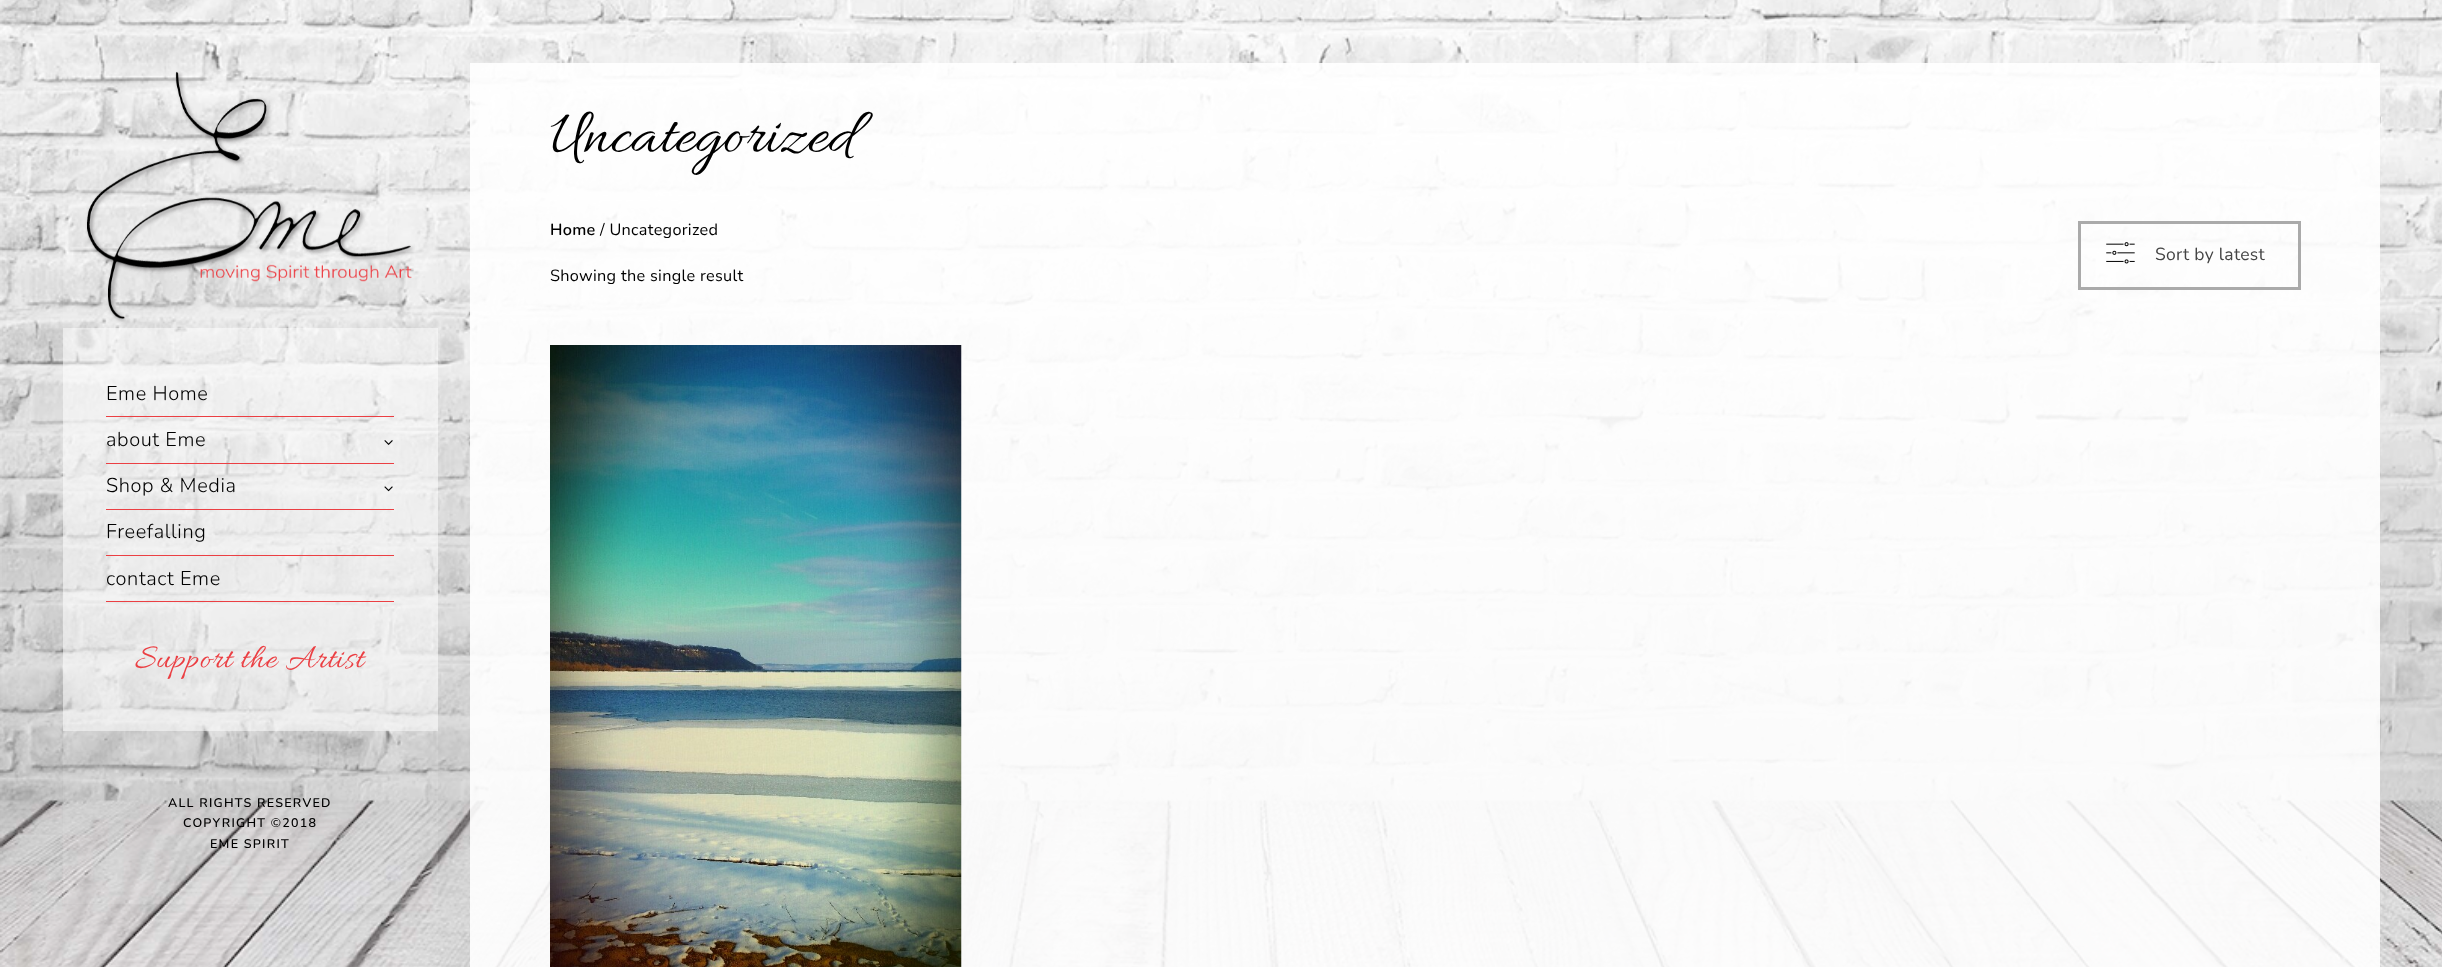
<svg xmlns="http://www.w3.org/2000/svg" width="2442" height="967">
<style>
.a{font:65px Allura;fill:#000}
.b{font:600 16.25px Nunito;letter-spacing:0.3px;fill:#000}
.c{font:16.25px Nunito;letter-spacing:0.3px;fill:#000}
.d{font:17.5px Nunito;letter-spacing:0.3px;fill:#444}
.e{font:300 20px Nunito;letter-spacing:0.6px;fill:#000}
.f{font:35px Allura;letter-spacing:0.6px;fill:#eb3f43}
.g{font:600 12.5px Nunito;letter-spacing:1.25px;fill:#000}
</style>
<rect width="100%" height="100%" fill="#fff"/>
<image href="1.png" x="0" y="0" width="2442" height="967"/>
<image href="2.png" x="0" y="0" width="2442" height="967"/>
<path fill="#ffffffe6" d="M470 63h1910v904H470z"/>
<path fill="none" stroke="#aaa" stroke-width="3" d="M2079.5 222.5h220v66H2079.5z"/>
<image href="3.png" x="2106" y="242" width="29" height="22"/>
<image href="4.png" x="550" y="345" width="412" height="622"/>
<path fill="#ffffff1a" d="M63 63h375v841H63z"/>
<image href="5.png" x="85" y="71" width="330" height="253"/>
<path fill="#ffffff80" d="M63 328h375v403H63z"/>
<path fill="#eb3f43" d="M106 416h288v1H106z"/>
<path fill="#eb3f43" d="M106 463h288v1H106z"/>
<image href="6.png" x="384" y="440" width="9" height="5"/>
<path fill="#eb3f43" d="M106 509h288v1H106z"/>
<image href="7.png" x="384" y="486" width="9" height="6"/>
<path fill="#eb3f43" d="M106 555h288v1H106z"/>
<path fill="#eb3f43" d="M106 601h288v1H106z"/>
<text class="a" x="550" y="151">Uncategorized</text>
<text class="b" x="550" y="235">Home</text>
<text class="c" x="600" y="235">/ Uncategorized</text>
<text class="d" x="2155" y="260">Sort by latest</text>
<text class="c" x="550" y="281">Showing the single result</text>
<text class="e" x="106" y="400">Eme Home</text>
<text class="e" x="106" y="446">about Eme</text>
<text class="e" x="106" y="492">Shop &amp; Media</text>
<text class="e" x="106" y="538">Freefalling</text>
<text class="e" x="106" y="585">contact Eme</text>
<text class="f" x="135" y="667">Support the Artist</text>
<text class="g" x="168" y="807">ALL RIGHTS RESERVED</text>
<text class="g" x="183" y="827">COPYRIGHT ©2018</text>
<text class="g" x="210" y="848">EME SPIRIT</text>
</svg>
